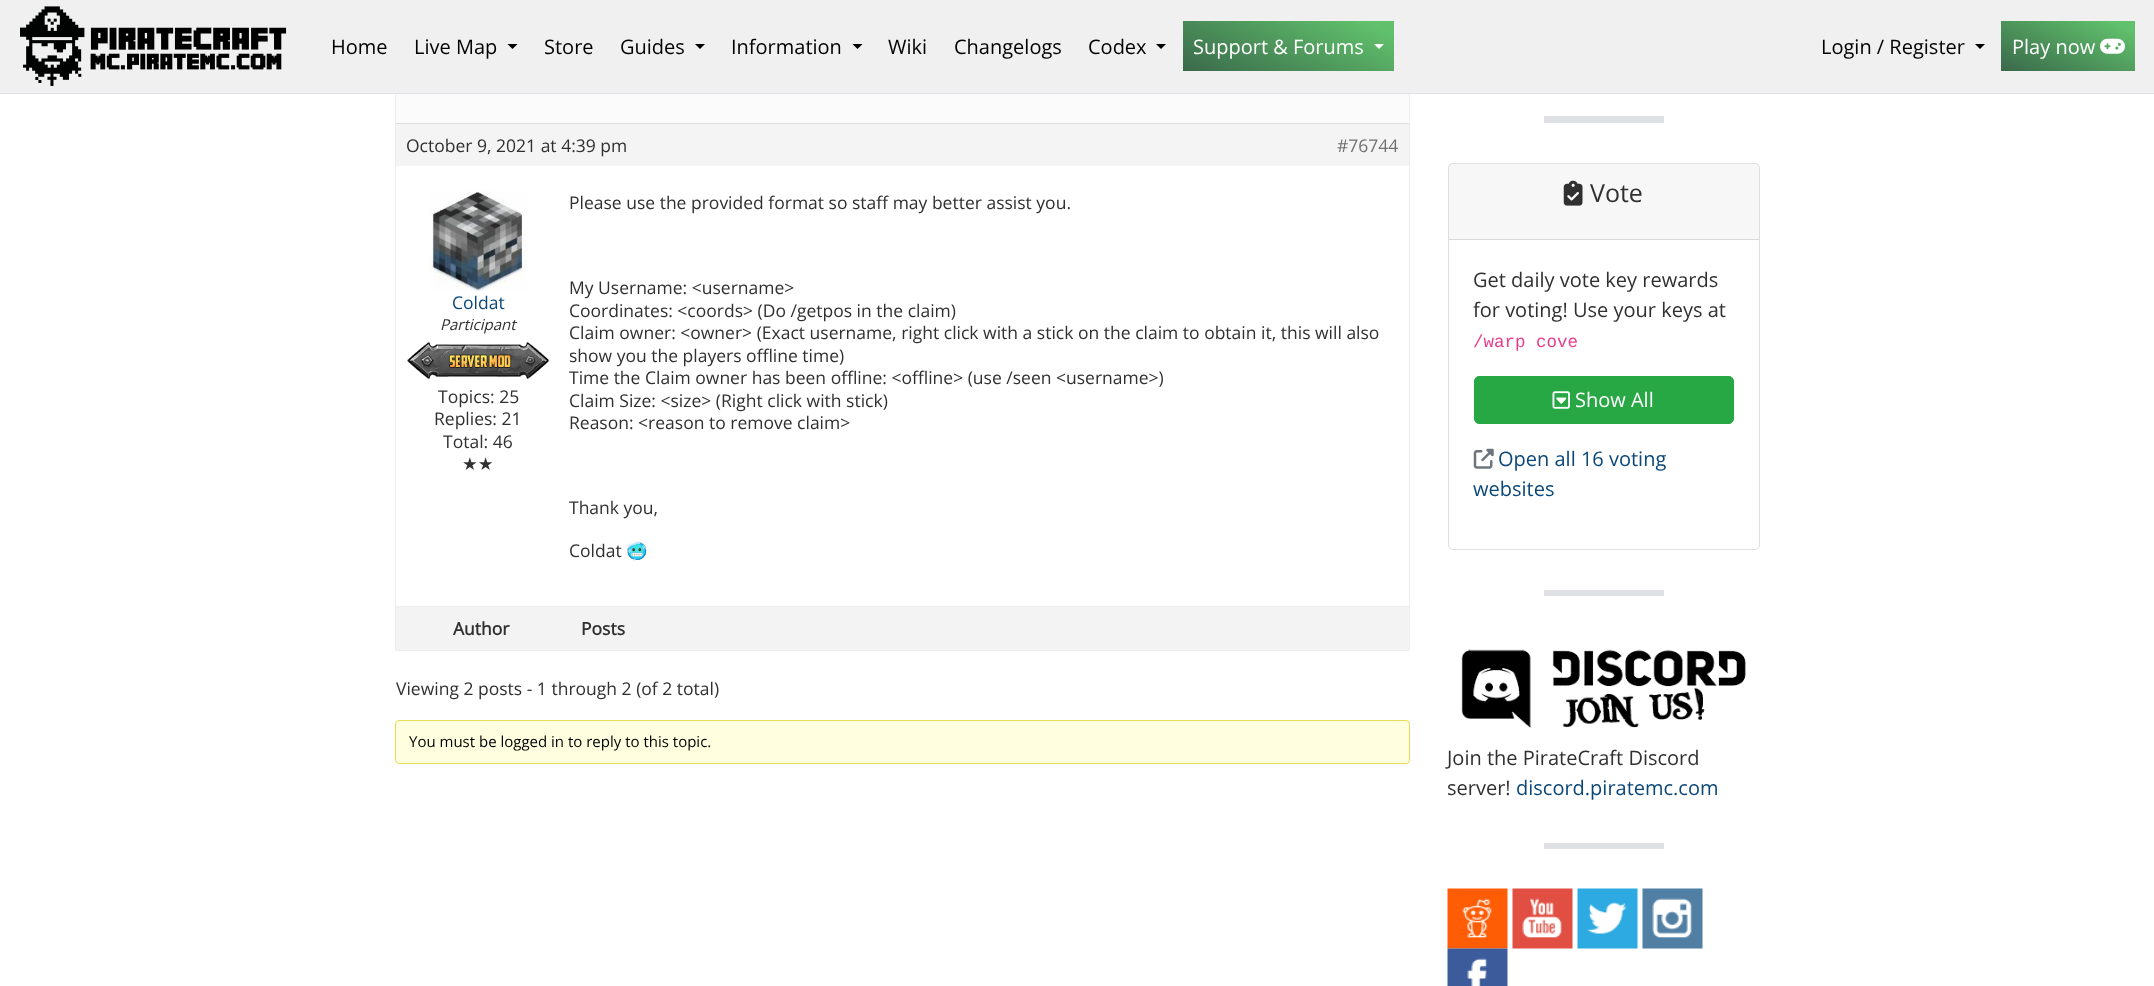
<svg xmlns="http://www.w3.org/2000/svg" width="2154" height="986">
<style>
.a{font:20px Open Sans;fill:#000}
.b{font:20px Open Sans;fill:#fff}
.c{font:17.5px Open Sans;fill:#303030}
.d{font:17.5px Open Sans;fill:#707070}
.e{font:17.5px Open Sans;fill:#0b4779}
.f{font:italic 15px Open Sans;fill:#303030}
.g{font:17.5px DejaVu Sans;fill:#303030}
.h{font:17.5px Noto Color Emoji;fill:#303030}
.i{font:bold 17.5px Open Sans;fill:#303030}
.j{font:15px Open Sans;fill:#000}
.k{font:25px Open Sans;fill:#303030}
.l{font:20px Open Sans;fill:#303030}
.m{font:17.5px Liberation Mono;fill:#e83e8c}
.n{font:20px Open Sans;fill:#0b4779}
</style>
<defs>
<linearGradient id="g1" gradientUnits="userSpaceOnUse" x1="1260" y1="107" x2="1317" y2="-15"><stop offset="0" stop-color="#3a694b"/><stop offset="0.9" stop-color="#60c06b"/></linearGradient>
<linearGradient id="g2" gradientUnits="userSpaceOnUse" x1="2047" y1="92" x2="2090" y2="0.1"><stop offset="0" stop-color="#3a694b"/><stop offset="0.9" stop-color="#60c06b"/></linearGradient>
</defs>
<rect width="100%" height="100%" fill="#fff"/>
<path fill="none" stroke="#eee" d="M395.5 -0.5h1014v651H395.5z"/>
<path fill="#f0f0f0" d="M0 0h2154v93H0z"/>
<path fill="#dee2e6" d="M0 93h2154v1H0z"/>
<image href="1.png" x="20" y="6" width="267" height="80"/>
<path fill="#000" d="M507.5 44h10l-5 5z"/>
<path fill="#000" d="M695 44h10l-5 5z"/>
<path fill="#000" d="M852.5 44h10l-5 5z"/>
<path fill="#000" d="M1156 44h10l-5 5z"/>
<path fill="url(#g1)" d="M1183 21h211v50H1183z"/>
<path fill="#fff" d="M1374 44h10l-5 5z"/>
<path fill="#000" d="M1975 44h10l-5 5z"/>
<path fill="url(#g2)" d="M2001 21h134v50H2001z"/>
<image href="2.png" x="2100" y="38" width="25" height="16"/>
<path fill="#fbfbfb" d="M396 94h1013v29H396z"/>
<path fill="#f4f4f4" d="M396 124h1013v42H396z"/>
<path fill="#ddd" d="M396 123h1013v1H396z"/>
<image href="3.png" x="429" y="191" width="98" height="100"/>
<image href="4.png" x="407" y="342" width="143" height="37"/>
<path fill="#f3f3f3" d="M396 607h1013v43H396z"/>
<path fill="#eee" d="M396 606h1013v1H396z"/>
<rect fill="#ffffe0" stroke="#e6db55" x="395.5" y="720.5" width="1014" height="43" rx="3.5"/>
<path fill="#dfe1e5" d="M1544 116h120v7H1544z"/>
<rect fill="none" stroke="#dfdfdf" x="1448.5" y="163.5" width="311" height="386" rx="4.5"/>
<path fill="#00000008" d="M1449 164h310v75H1449z"/>
<path fill="#d8d8d8" d="M1449 239h310v1H1449z"/>
<image href="5.png" x="1563" y="180" width="20" height="26"/>
<rect fill="#28a745" stroke="#28a745" x="1474.5" y="376.5" width="259" height="47" rx="4.5"/>
<image href="6.png" x="1552" y="391" width="18" height="18"/>
<image href="7.png" x="1473" y="448" width="21" height="21"/>
<path fill="#dfe1e5" d="M1544 590h120v6H1544z"/>
<image href="8.png" x="1461" y="649" width="285" height="79"/>
<path fill="#dfe1e5" d="M1544 843h120v6H1544z"/>
<image href="9.png" x="1447" y="888" width="61" height="61"/>
<image href="10.png" x="1512" y="888" width="61" height="61"/>
<image href="11.png" x="1577" y="888" width="61" height="61"/>
<image href="12.png" x="1642" y="888" width="61" height="61"/>
<image href="13.png" x="1447" y="948" width="61" height="38"/>
<text class="a" x="331" y="54">Home</text>
<text class="a" x="414" y="54">Live Map</text>
<text class="a" x="544" y="54">Store</text>
<text class="a" x="620" y="54">Guides</text>
<text class="a" x="731" y="54">Information</text>
<text class="a" x="888" y="54">Wiki</text>
<text class="a" x="954" y="54">Changelogs</text>
<text class="a" x="1088" y="54">Codex</text>
<text class="b" x="1193" y="54">Support &amp; Forums</text>
<text class="a" x="1821" y="54">Login / Register</text>
<text class="b" x="2012" y="54">Play now</text>
<text class="c" x="406" y="152">October 9, 2021 at 4:39 pm</text>
<text class="d" x="1337" y="152">#76744</text>
<text class="e" x="452" y="309">Coldat</text>
<text class="f" x="440" y="330">Participant</text>
<text class="c" x="438" y="403">Topics: 25</text>
<text class="c" x="434" y="425">Replies: 21</text>
<text class="c" x="443" y="448">Total: 46</text>
<text class="g" x="462" y="470">★★</text>
<text class="c" x="569" y="209">Please use the provided format so staff may better assist you.</text>
<text class="c" x="569" y="294">My Username: &lt;username&gt;</text>
<text class="c" x="569" y="317">Coordinates: &lt;coords&gt; (Do /getpos in the claim)</text>
<text class="c" x="569" y="339">Claim owner: &lt;owner&gt; (Exact username, right click with a stick on the claim to obtain it, this will also</text>
<text class="c" x="569" y="362">show you the players offline time)</text>
<text class="c" x="569" y="384">Time the Claim owner has been offline: &lt;offline&gt; (use /seen &lt;username&gt;)</text>
<text class="c" x="569" y="407">Claim Size: &lt;size&gt; (Right click with stick)</text>
<text class="c" x="569" y="429">Reason: &lt;reason to remove claim&gt;</text>
<text class="c" x="569" y="514">Thank you,</text>
<text class="c" x="569" y="557">Coldat</text>
<text class="h" x="626" y="557">🥶</text>
<text class="i" x="453" y="635">Author</text>
<text class="i" x="581" y="635">Posts</text>
<text class="c" x="396" y="695">Viewing 2 posts - 1 through 2 (of 2 total)</text>
<text class="j" x="409" y="747">You must be logged in to reply to this topic.</text>
<text class="k" x="1590" y="202">Vote</text>
<text class="l" x="1473" y="287">Get daily vote key rewards</text>
<text class="l" x="1473" y="317">for voting! Use your keys at</text>
<text class="m" x="1473" y="347">/warp cove</text>
<text class="b" x="1575" y="407">Show All</text>
<text class="n" x="1498" y="466">Open all 16 voting</text>
<text class="n" x="1473" y="496">websites</text>
<text class="l" x="1447" y="765">Join the PirateCraft Discord</text>
<text class="l" x="1447" y="795">server!</text>
<text class="n" x="1516" y="795">discord.piratemc.com</text>
</svg>
